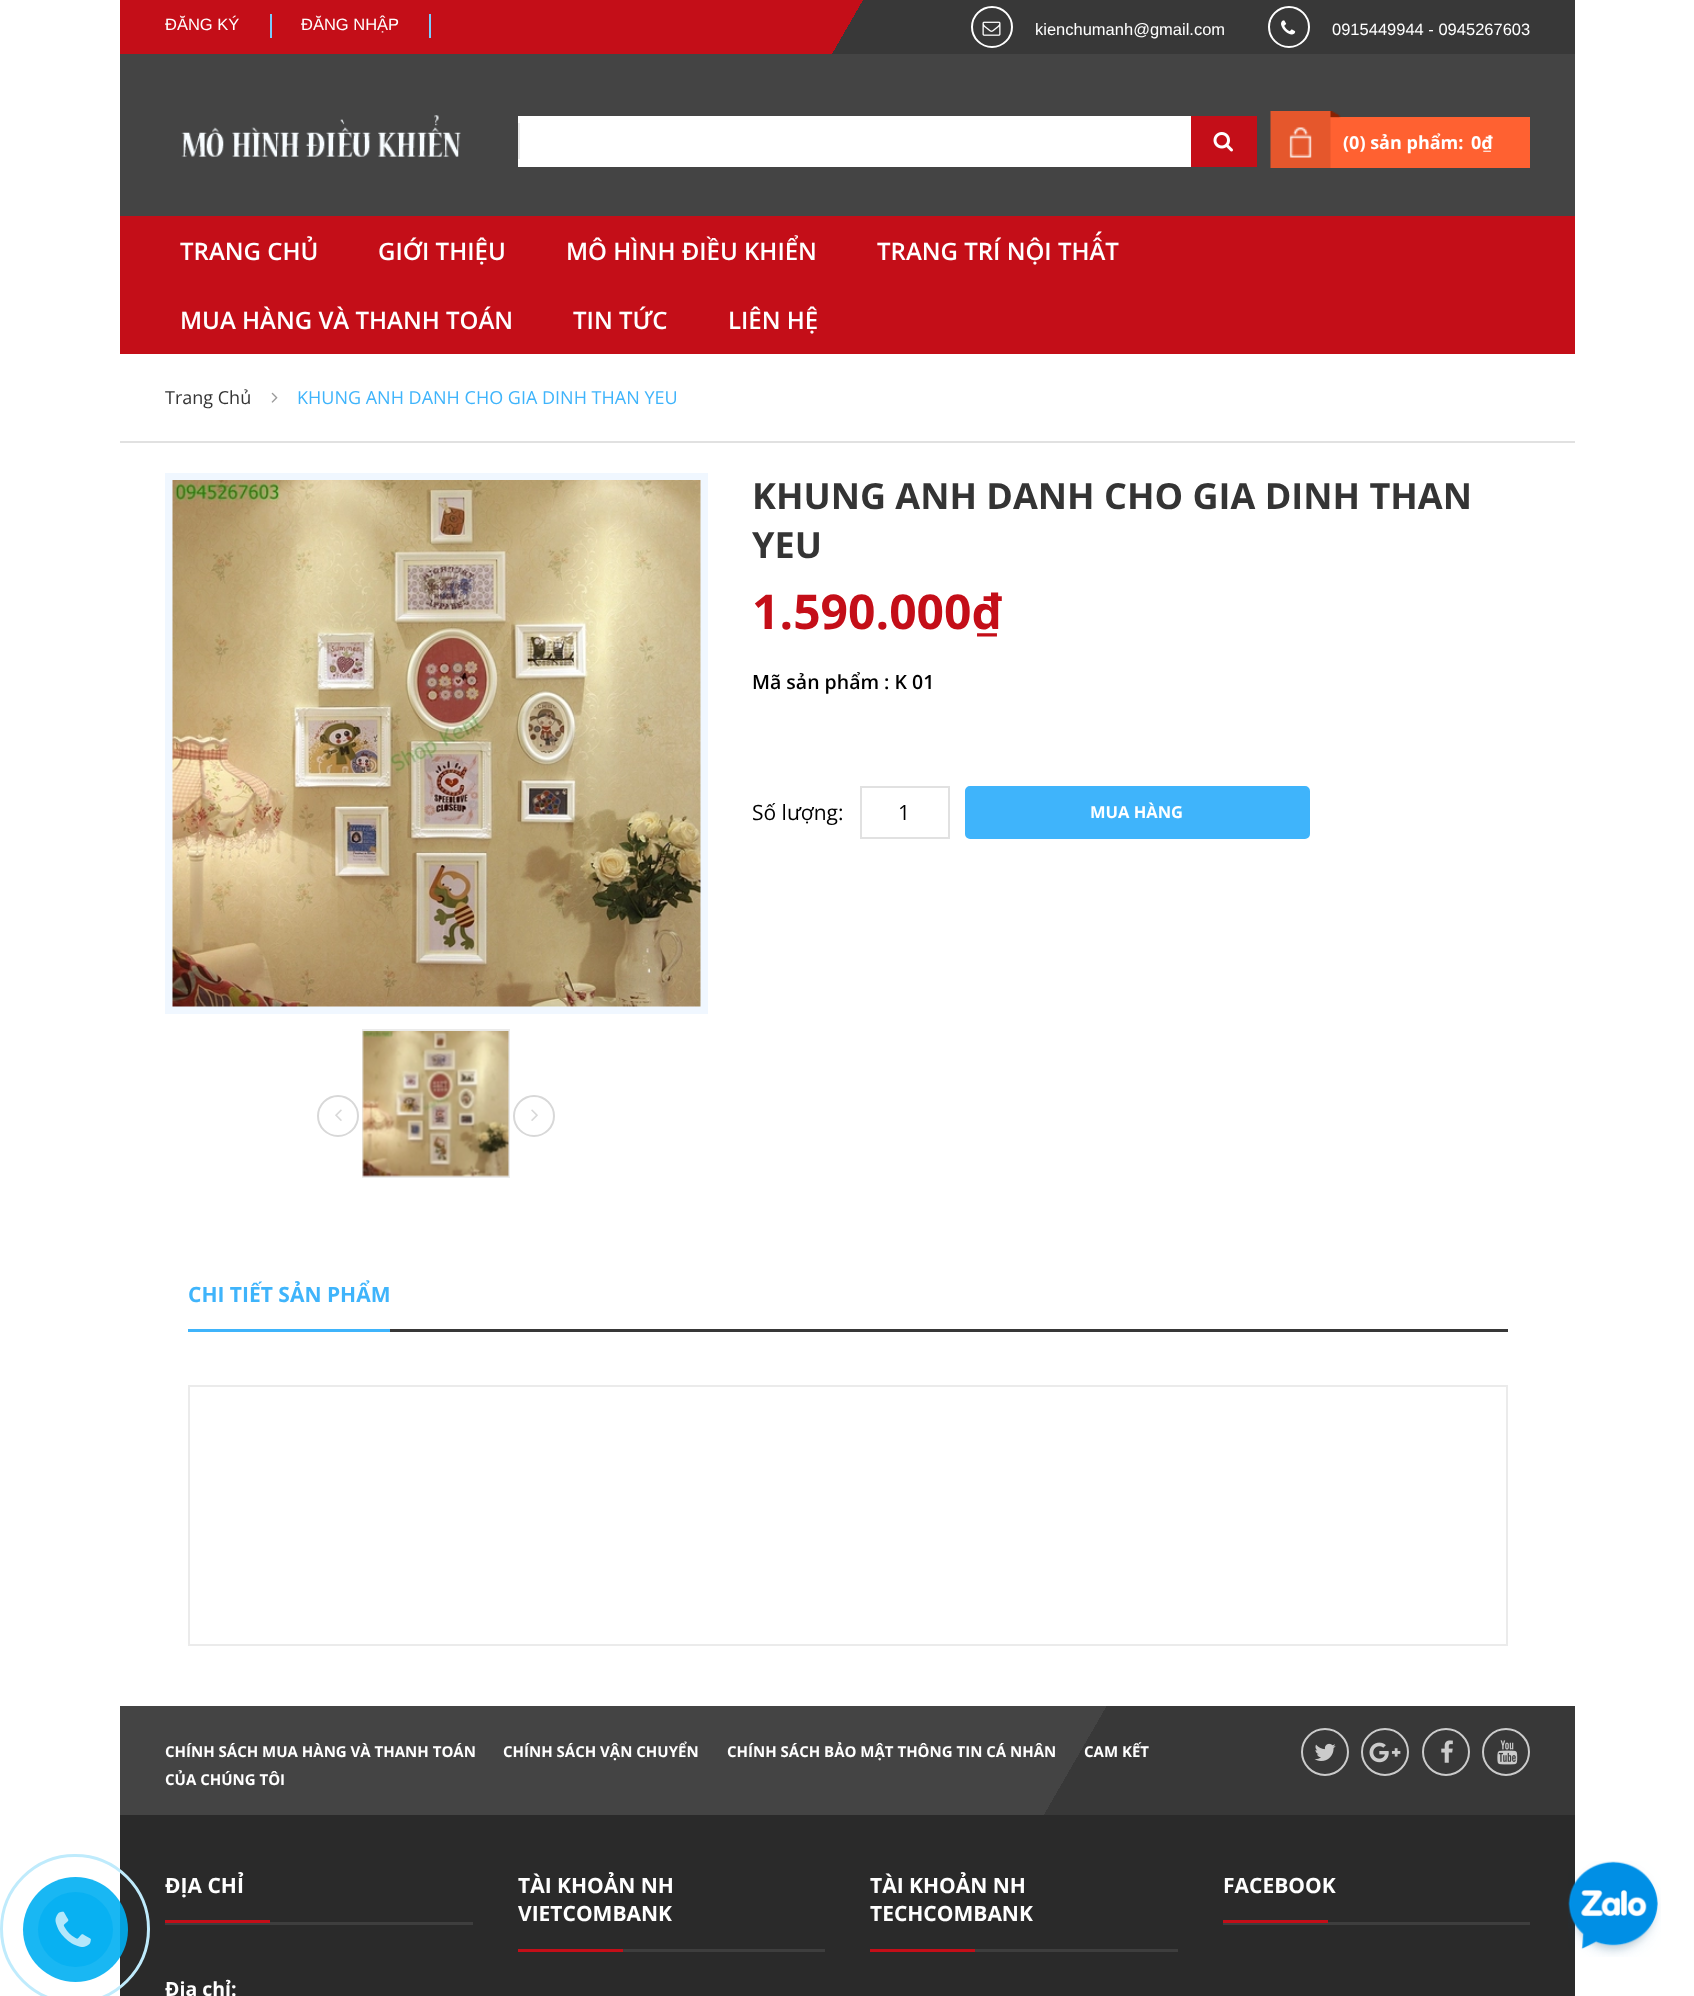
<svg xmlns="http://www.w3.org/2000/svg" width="1694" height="1996">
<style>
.a{font:16.5px Liberation Sans;fill:#fff}
.b{font:bold 18px Open Sans;fill:#fff}
.c{font:600 24px Open Sans;fill:#fff}
.d{font:18px Open Sans;fill:#343434}
.e{font:18px Open Sans;fill:#3fb4fb}
.f{font:bold 36px Open Sans;fill:#343434}
.g{font:bold 48px Open Sans;fill:#c40e18}
.h{font:600 19.5px Open Sans;fill:#000}
.i{font:21px Open Sans;fill:#000}
.j{font:bold 16.5px Open Sans;fill:#fff}
.k{font:bold 21px Open Sans;fill:#3fb4fb}
.l{font:bold 15px Open Sans;fill:#fff}
.m{font:bold 21px Open Sans;fill:#fff}
.n{font:bold 19.5px Open Sans;fill:#fff}
</style>
<defs>
<linearGradient id="g1" gradientUnits="userSpaceOnUse" x1="290" y1="-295" x2="1405" y2="349"><stop offset="0.5" stop-color="#c40e18"/><stop offset="0.5" stop-color="#383838"/></linearGradient>
<linearGradient id="g2" gradientUnits="userSpaceOnUse" x1="278" y1="1432" x2="1417" y2="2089"><stop offset="0.65" stop-color="#444"/><stop offset="0.65" stop-color="#383838"/></linearGradient>
</defs>
<rect width="100%" height="100%" fill="#fff"/>
<path fill="#2a2a2a" d="M120 1815h1455v181H120z"/>
<circle fill="none" stroke="#bfebfc" stroke-width="3" cx="75" cy="1929" r="73.5"/>
<circle fill="#00aff2e6" cx="75.5" cy="1929.5" r="52.5"/>
<circle fill="#08b1f2" cx="75.5" cy="1929.5" r="37.5"/>
<image href="1.png" x="55" y="1911" width="36" height="36"/>
<path fill="url(#g1)" d="M120 0h1455v54H120z"/>
<path fill="#79cbfc" d="M270 14h2v24H270z"/>
<path fill="#79cbfc" d="M429 14h2v24H429z"/>
<circle fill="none" stroke="#fff" stroke-width="2" cx="992" cy="27" r="20"/>
<image href="2.png" x="982" y="21" width="19" height="15"/>
<circle fill="none" stroke="#fff" stroke-width="2" cx="1289" cy="27" r="20"/>
<image href="3.png" x="1281" y="20" width="15" height="15"/>
<path fill="#444" d="M120 54h1455v162H120z"/>
<image href="4.png" x="181" y="115" width="280" height="42"/>
<path fill="#fff" d="M518 116h673v51H518z"/>
<path fill="#ebebeb" d="M518 123h2v36H518z"/>
<path fill="#c40e18" d="M1191 116h66v51H1191z"/>
<image href="5.png" x="1213" y="132" width="20" height="20"/>
<path fill="#ff6131" d="M1330 117h200v51H1330z"/>
<image href="6.png" x="1270" y="111" width="71" height="57"/>
<path fill="#c40e18" d="M120 216h1455v138H120z"/>
<path fill="#e1e1e1" d="M120 441h1455v2H120z"/>
<image href="7.png" x="271" y="392" width="7" height="11"/>
<path fill="none" stroke="#f0f7ff" stroke-width="8" d="M169 477h535v533H169z"/>
<image href="8.png" x="172" y="480" width="529" height="527"/>
<path fill="none" stroke="#ebebeb" stroke-width="2" d="M363 1030h146v147H363z"/>
<image href="9.png" x="362" y="1031" width="147" height="146"/>
<circle fill="none" stroke="#d8d8d8" stroke-width="2" cx="338" cy="1116" r="20"/>
<image href="10.png" x="335" y="1109" width="7" height="12"/>
<circle fill="none" stroke="#d8d8d8" stroke-width="2" cx="534" cy="1116" r="20"/>
<image href="11.png" x="531" y="1109" width="7" height="12"/>
<path fill="none" stroke="#e1e1e1" stroke-width="2" d="M861 787h88v51H861z"/>
<rect fill="#3fb4fb" stroke="#3fb4fb" stroke-width="3" x="966.5" y="787.5" width="342" height="50" rx="3.5"/>
<path fill="#383838" d="M390 1329h1118v3H390z"/>
<path fill="#3fb4fb" d="M188 1329h202v3H188z"/>
<path fill="none" stroke="#ebebeb" stroke-width="2" d="M189 1386h1318v259H189z"/>
<path fill="url(#g2)" d="M120 1706h1455v109H120z"/>
<circle fill="none" stroke="#cbcbcb" stroke-width="2" cx="1325" cy="1752" r="23"/>
<image href="12.png" x="1314" y="1743" width="22" height="18"/>
<circle fill="none" stroke="#cbcbcb" stroke-width="2" cx="1385" cy="1752" r="23"/>
<image href="13.png" x="1369" y="1742" width="32" height="21"/>
<circle fill="none" stroke="#cbcbcb" stroke-width="2" cx="1446" cy="1752" r="23"/>
<image href="14.png" x="1441" y="1740" width="12" height="23"/>
<circle fill="none" stroke="#cbcbcb" stroke-width="2" cx="1506" cy="1752" r="23"/>
<image href="15.png" x="1497" y="1740" width="21" height="25"/>
<path fill="#3e3e3e" d="M165 1922h308v3H165z"/>
<path fill="#c40e18" d="M165 1920h105v3H165z"/>
<path fill="#3e3e3e" d="M623 1949h202v3H623z"/>
<path fill="#c40e18" d="M518 1949h105v3H518z"/>
<path fill="#3e3e3e" d="M975 1949h203v3H975z"/>
<path fill="#c40e18" d="M870 1949h105v3H870z"/>
<path fill="#3e3e3e" d="M1223 1922h307v3H1223z"/>
<path fill="#c40e18" d="M1223 1920h105v3H1223z"/>
<image href="16.png" x="1568" y="1861" width="93" height="96"/>
<text class="a" x="165" y="30">ĐĂNG KÝ</text>
<text class="a" x="301" y="30">ĐĂNG NHẬP</text>
<text class="a" x="1035" y="35">kienchumanh@gmail.com</text>
<text class="a" x="1332" y="35">0915449944 - 0945267603</text>
<text class="b" x="1343" y="149">(0) sản phẩm:</text>
<text class="b" x="1471" y="149">0₫</text>
<text class="c" x="180" y="260">TRANG CHỦ</text>
<text class="c" x="378" y="260">GIỚI THIỆU</text>
<text class="c" x="566" y="260">MÔ HÌNH ĐIỀU KHIỂN</text>
<text class="c" x="877" y="260">TRANG TRÍ NỘI THẤT</text>
<text class="c" x="180" y="329">MUA HÀNG VÀ THANH TOÁN</text>
<text class="c" x="573" y="329">TIN TỨC</text>
<text class="c" x="728" y="329">LIÊN HỆ</text>
<text class="d" x="165" y="404">Trang Chủ</text>
<text class="e" x="297" y="404">KHUNG ANH DANH CHO GIA DINH THAN YEU</text>
<text class="f" x="752" y="509">KHUNG ANH DANH CHO GIA DINH THAN</text>
<text class="f" x="752" y="558">YEU</text>
<text class="g" x="752" y="629">1.590.000₫</text>
<text class="h" x="752" y="689">Mã sản phẩm : K 01</text>
<text class="i" x="752" y="820">Số lượng:</text>
<text class="i" x="898" y="820">1</text>
<text class="j" x="1090" y="818">MUA HÀNG</text>
<text class="k" x="188" y="1302">CHI TIẾT SẢN PHẨM</text>
<text class="l" x="165" y="1757">CHÍNH SÁCH MUA HÀNG VÀ THANH TOÁN</text>
<text class="l" x="503" y="1757">CHÍNH SÁCH VẬN CHUYỂN</text>
<text class="l" x="727" y="1757">CHÍNH SÁCH BẢO MẬT THÔNG TIN CÁ NHÂN</text>
<text class="l" x="1084" y="1757">CAM KẾT</text>
<text class="l" x="165" y="1785">CỦA CHÚNG TÔI</text>
<text class="m" x="165" y="1893">ĐỊA CHỈ</text>
<text class="n" x="165" y="1996">Địa chỉ:</text>
<text class="m" x="518" y="1893">TÀI KHOẢN NH</text>
<text class="m" x="518" y="1921">VIETCOMBANK</text>
<text class="m" x="870" y="1893">TÀI KHOẢN NH</text>
<text class="m" x="870" y="1921">TECHCOMBANK</text>
<text class="m" x="1223" y="1893">FACEBOOK</text>
</svg>
